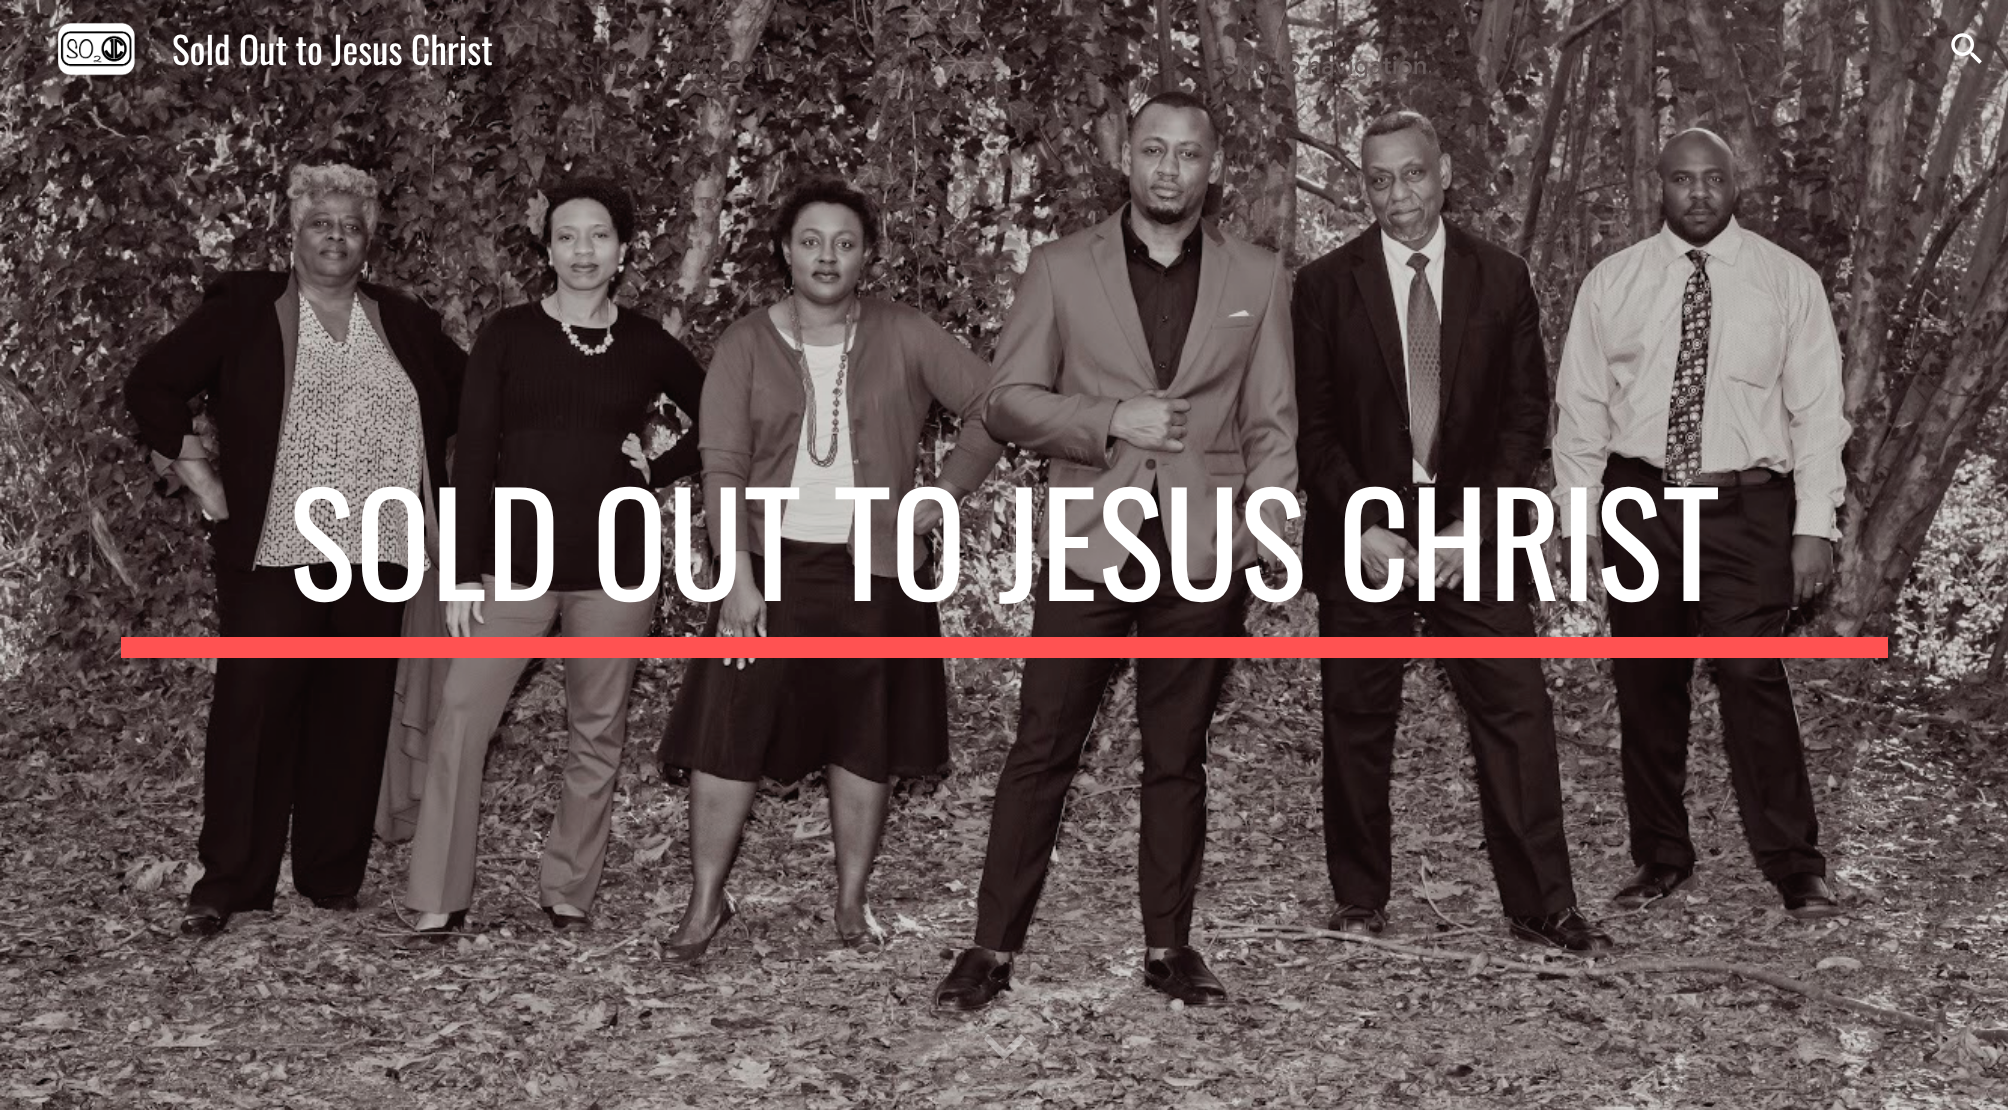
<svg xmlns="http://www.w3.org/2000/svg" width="2008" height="1110">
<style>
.a{font:37.25px Oswald;fill:#fff}
.b{font:140px Oswald;fill:#fff}
.c{font:500 24.5px Google Sans;letter-spacing:0.25px;fill:#443737}
.d{font:500 24.5px Google Sans;letter-spacing:0.25px;fill:#685c5c}
</style>
<rect width="100%" height="100%" fill="#fff"/>
<image href="3.png" x="0" y="0" width="2008" height="1110"/>
<image href="1.png" x="58" y="22" width="77" height="54"/>
<image href="2.png" x="1951" y="33" width="31" height="31"/>
<path fill="#ff5252" d="M121 637h1767v21H121z"/>
<path fill="#ffffff66" d="M988 1034l16 16l17-16l5 5l-22 21l-20-21z"/>
<text class="a" x="172" y="65">Sold Out to Jesus Christ</text>
<text class="b" x="289" y="601">SOLD OUT TO JESUS CHRIST</text>
<text class="c" x="581" y="74">Skip to main content</text>
<text class="d" x="1222" y="74">Skip to navigation</text>
</svg>
